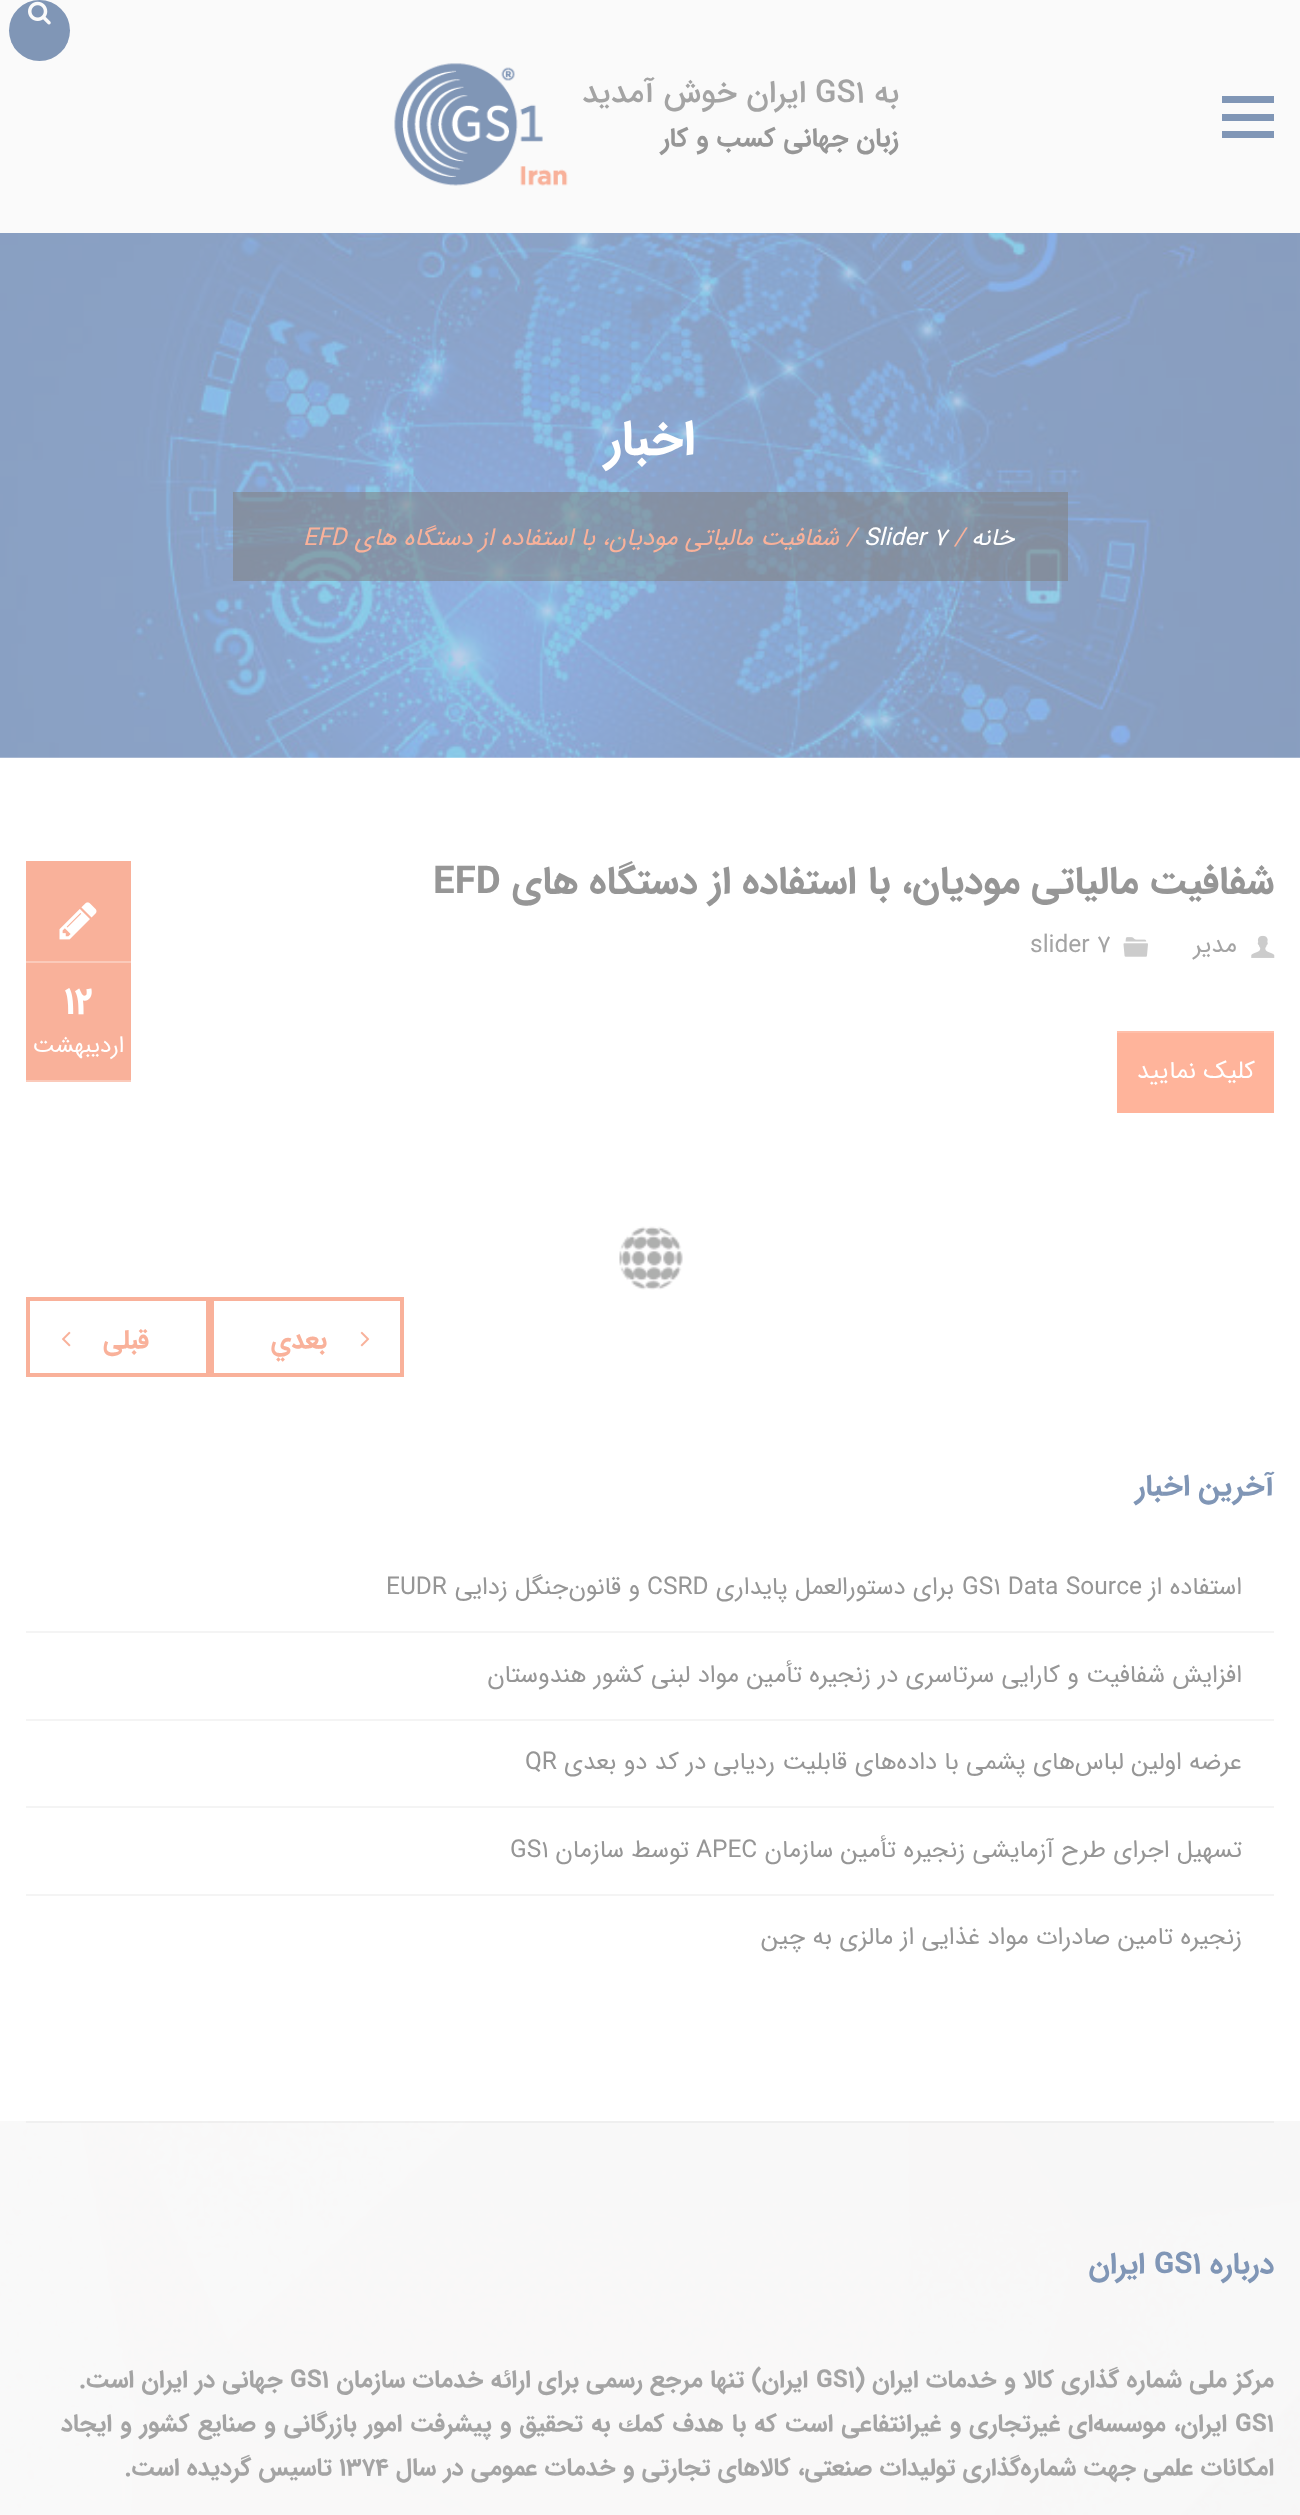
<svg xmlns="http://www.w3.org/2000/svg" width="1300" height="2515">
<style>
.a{font:500 31.5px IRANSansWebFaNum;direction:rtl;fill:#a4a4a4}
.b{font:500 31.5px IRANSansWebFaNum;fill:#a4a4a4}
.c{font:bold 26.25px IRANSansWebFaNum;direction:rtl;fill:#969696}
.d{font:bold 49px IRANSansWebFaNum;direction:rtl;fill:#fff}
.e{font:italic 24.5px IRANSansWebFaNum;direction:rtl;fill:#fff}
.f{font:italic 24.5px IRANSansWebFaNum;fill:#f9b19a}
.g{font:italic 24.5px IRANSansWebFaNum;fill:#fff}
.h{font:italic 24.5px IRANSansWebFaNum;direction:rtl;fill:#f9b19a}
.i{font:bold 38.5px IRANSansWebFaNum;direction:rtl;fill:#969696}
.j{font:bold 38.5px IRANSansWebFaNum;fill:#969696}
.k{font:24.5px IRANSansWebFaNum;direction:rtl;fill:#a4a4a4}
.l{font:24.5px IRANSansWebFaNum;fill:#a4a4a4}
.m{font:24.5px IRANSansWebFaNum;direction:rtl;fill:#fff}
.n{font:bold 37px IRANSansWebFaNum;fill:#fff}
.o{font:23px IRANSansWebFaNum;direction:rtl;fill:#fff}
.p{font:bold 26.25px IRANSansWebFaNum;direction:rtl;fill:#f9b19a}
.q{font:bold 29.75px IRANSansWebFaNum;direction:rtl;fill:#8096b6}
.r{font:24.5px IRANSansWebFaNum;direction:rtl;fill:#969696}
.s{font:24.5px IRANSansWebFaNum;fill:#969696}
.t{font:bold 29.75px IRANSansWebFaNum;fill:#8096b6}
.u{font:bold 24.5px IRANSansWebFaNum;direction:rtl;fill:#a4a4a4}
.v{font:bold 24.5px IRANSansWebFaNum;fill:#a4a4a4}
</style>
<rect width="100%" height="100%" fill="#fff"/>
<path fill="#fafafa" d="M0 0h1300v233H0z"/>
<path fill="#8096b6" d="M1222 114h52v7H1222z"/>
<path fill="#8096b6" d="M1222 96h52v7H1222z"/>
<path fill="#8096b6" d="M1222 131h52v7H1222z"/>
<circle fill="#8096b6" cx="39.5" cy="30.5" r="30.5"/>
<image href="1.png" x="28" y="1" width="23" height="24"/>
<image href="2.png" x="394" y="63" width="174" height="123"/>
<image href="3.png" x="0" y="233" width="1300" height="525"/>
<path fill="#8080808a" d="M233 492h835v89H233z"/>
<image href="4.png" x="1251" y="935" width="24" height="23"/>
<image href="5.png" x="1123" y="937" width="25" height="20"/>
<path fill="#ffb49b" d="M1117 1033h157v80H1117z"/>
<path fill="#ffbfaa" d="M1117 1031h157v2H1117z"/>
<path fill="#f9b19a" d="M26 861h105v219H26z"/>
<path fill="#fbcaba" d="M26 961h105v2H26z"/>
<image href="6.png" x="59" y="902" width="38" height="38"/>
<path fill="#fbcaba" d="M26 1080h105v2H26z"/>
<path fill="none" stroke="#f9b19a" stroke-width="4" d="M212 1299h190v76H212z"/>
<image href="7.png" x="360" y="1331" width="10" height="16"/>
<path fill="none" stroke="#f9b19a" stroke-width="4" d="M28 1299h180v76H28z"/>
<image href="8.png" x="62" y="1331" width="9" height="16"/>
<path fill="#f4f4f4" d="M26 1631h1248v2H26z"/>
<path fill="#f4f4f4" d="M26 1719h1248v2H26z"/>
<path fill="#f4f4f4" d="M26 1806h1248v2H26z"/>
<path fill="#f4f4f4" d="M26 1894h1248v2H26z"/>
<image href="9.png" x="0" y="2121" width="1300" height="394"/>
<path fill="#80808012" d="M26 2121h1248v2H26z"/>
<image href="10.png" x="619" y="1226" width="64" height="64"/>
<text class="a" x="899" y="102">به</text>
<text class="b" x="815" y="102">GS1</text>
<text class="a" x="806" y="102">ایران خوش آمدید</text>
<text class="c" x="899" y="146">زبان جهانی كسب و كار</text>
<text class="d" x="695" y="454">اخبار</text>
<text class="e" x="1014" y="545">خانه</text>
<text class="f" x="954" y="545">/</text>
<text class="g" x="864" y="545">Slider 7</text>
<text class="f" x="846" y="545">/</text>
<text class="h" x="839" y="545">شفافیت مالیاتی مودیان، با استفاده از دستگاه های</text>
<text class="f" x="303" y="545">EFD</text>
<text class="i" x="1274" y="893">شفافیت مالیاتی مودیان، با استفاده از دستگاه های</text>
<text class="j" x="433" y="893">EFD</text>
<text class="k" x="1237" y="952">مدیر</text>
<text class="l" x="1030" y="952">slider 7</text>
<text class="m" x="1255" y="1078">کلیک نمایید</text>
<text class="n" x="64" y="1013">۱۲</text>
<text class="o" x="124" y="1052">اردیبهشت</text>
<text class="p" x="327" y="1348">بعدي</text>
<text class="p" x="149" y="1348">قبلی</text>
<text class="q" x="1274" y="1495">آخرین اخبار</text>
<text class="r" x="1242" y="1594">استفاده از</text>
<text class="s" x="962" y="1594">GS1 Data Source</text>
<text class="r" x="954" y="1594">برای دستورالعمل پایداری</text>
<text class="s" x="647" y="1594">CSRD</text>
<text class="r" x="640" y="1594">و قانون‌جنگل زدایی</text>
<text class="s" x="386" y="1594">EUDR</text>
<text class="r" x="1242" y="1682">افزایش شفافیت و کارایی سرتاسری در زنجیره تأمین مواد لبنی کشور هندوستان</text>
<text class="r" x="1242" y="1769">عرضه اولین لباس‌های پشمی با داده‌های قابلیت ردیابی در کد دو بعدی</text>
<text class="s" x="525" y="1769">QR</text>
<text class="r" x="1242" y="1857">تسهیل اجرای طرح آزمایشی زنجیره تأمین سازمان</text>
<text class="s" x="696" y="1857">APEC</text>
<text class="r" x="689" y="1857">توسط سازمان</text>
<text class="s" x="510" y="1857">GS1</text>
<text class="r" x="1242" y="1944">زنجیره تامین صادرات مواد غذایی از مالزی به چین</text>
<text class="q" x="1274" y="2273">درباره</text>
<text class="t" x="1154" y="2273">GS1</text>
<text class="q" x="1145" y="2273">ایران</text>
<text class="u" x="1274" y="2387">مرکز ملی شماره گذاری کالا و خدمات ایران (</text>
<text class="v" x="816" y="2387">GS1</text>
<text class="u" x="808" y="2387">ایران) تنها مرجع رسمی برای ارائه خدمات سازمان</text>
<text class="v" x="290" y="2387">GS1</text>
<text class="u" x="283" y="2387">جهانی در ایران است.</text>
<text class="v" x="1235" y="2431">GS1</text>
<text class="u" x="1227" y="2431" word-spacing="0.9">ایران، موسسه‌ای غيرتجاری و غيرانتفاعی است كه با هدف كمك به تحقيق و پيشرفت امور بازرگانی و صنايع كشور و ايجاد</text>
<text class="u" x="1274" y="2475">امكانات علمی جهت شماره‌گذاری توليدات صنعتی، كالاهای تجارتی و خدمات عمومی در سال</text>
<text class="v" x="339" y="2475">1374</text>
<text class="u" x="332" y="2475">تاسيس گرديده است.</text>
</svg>
